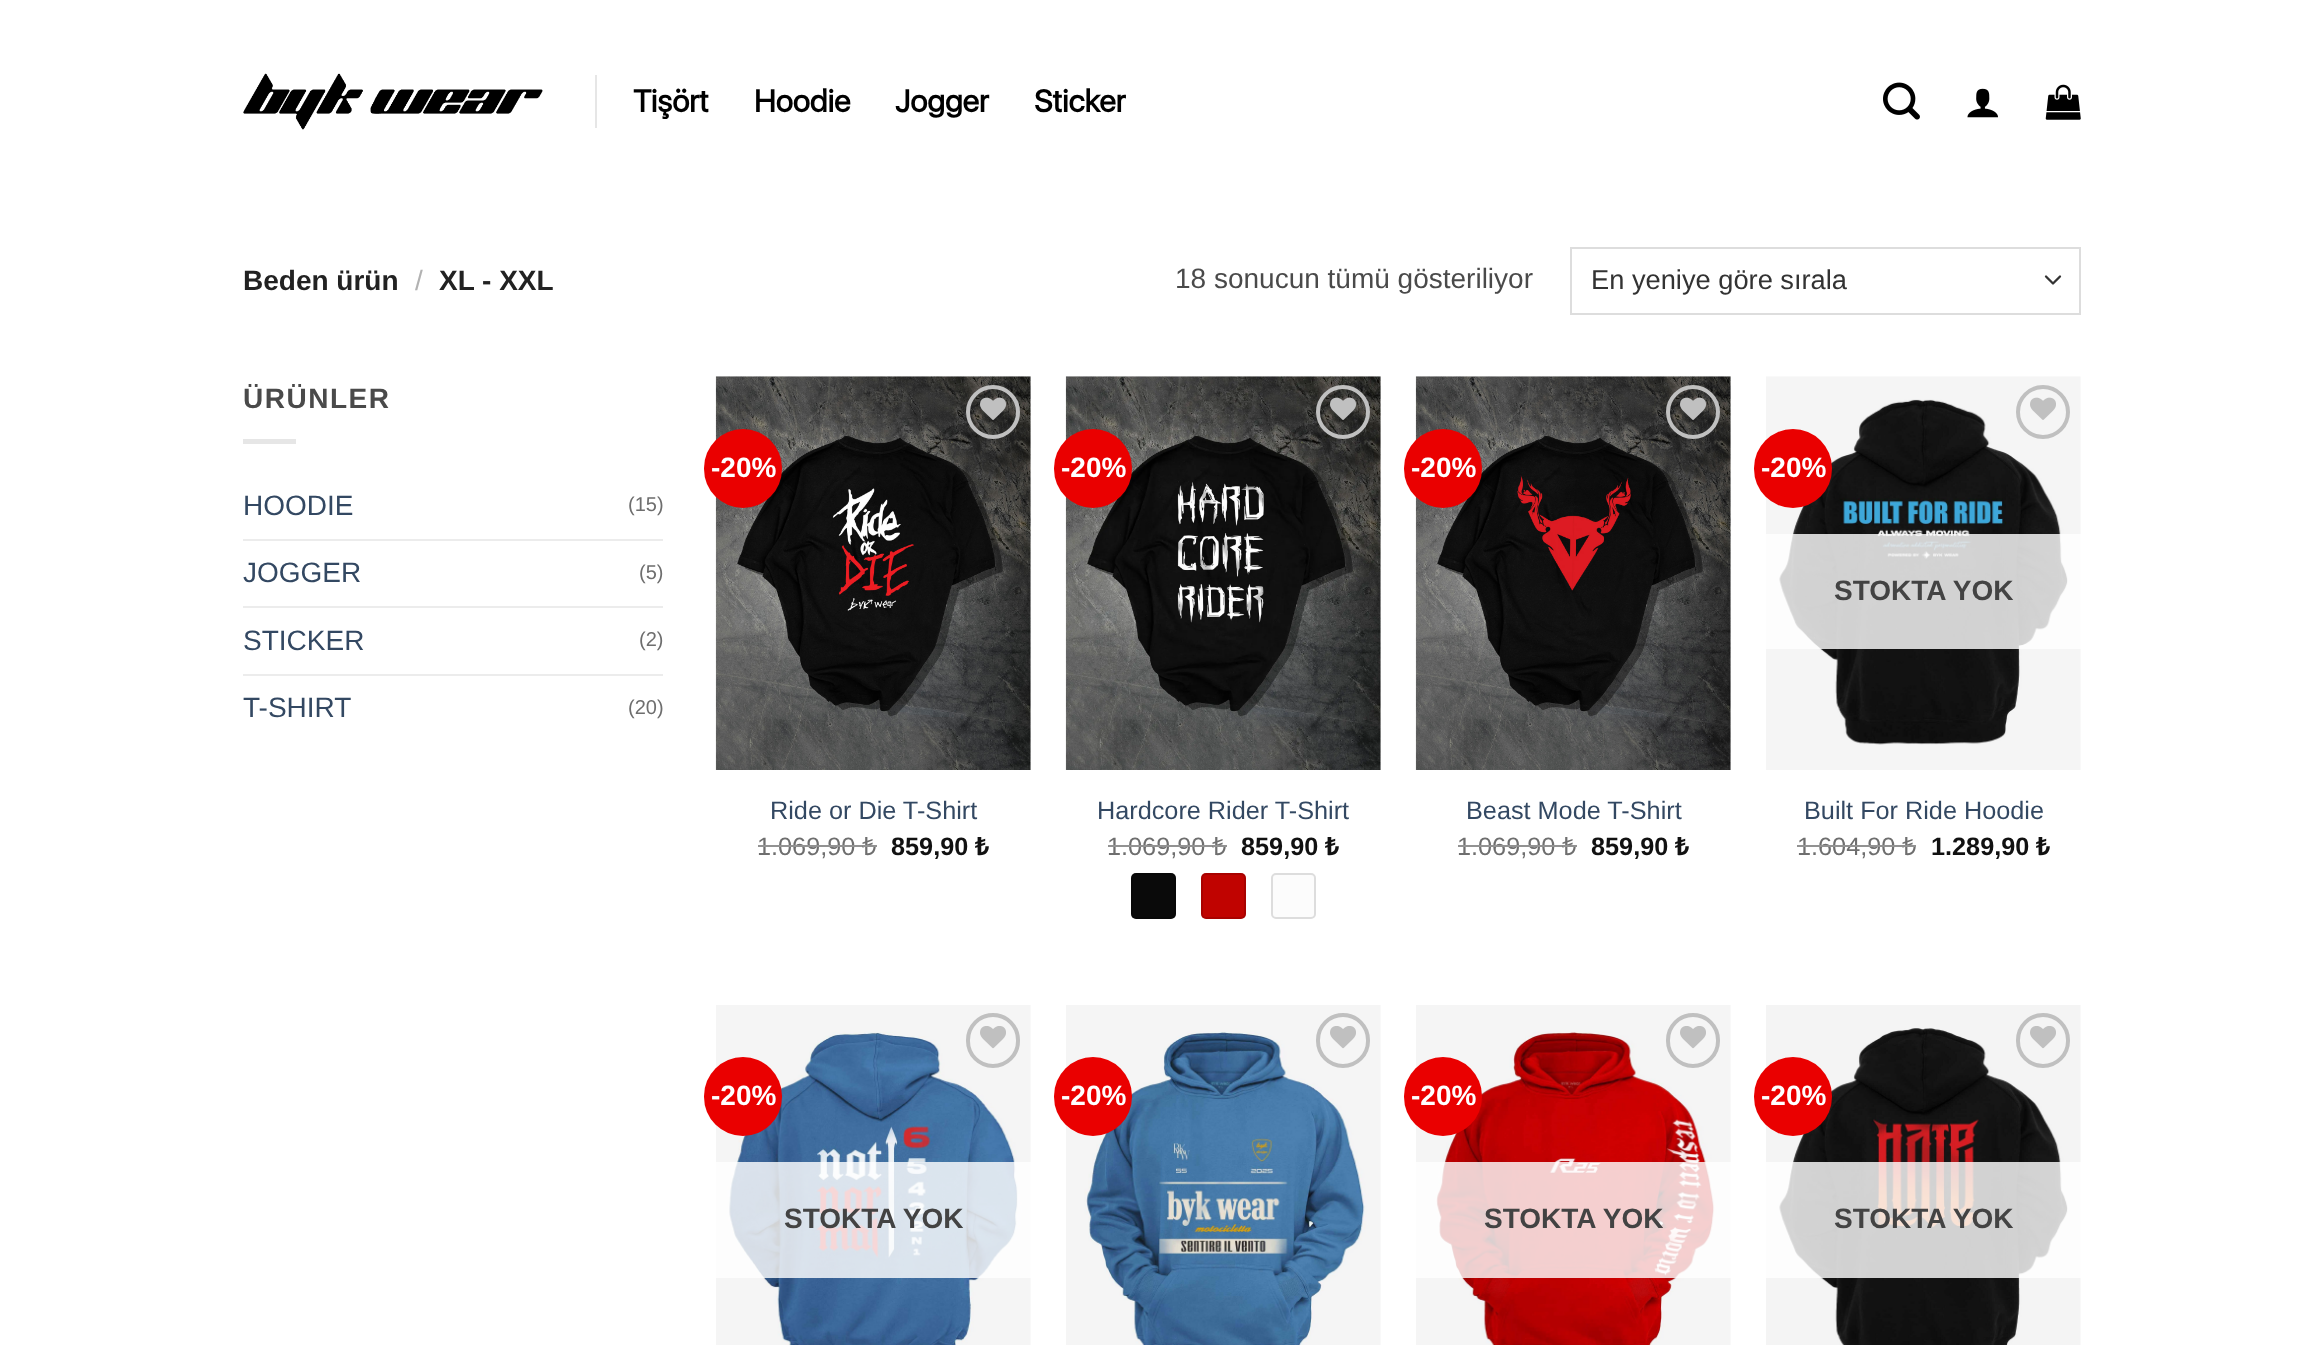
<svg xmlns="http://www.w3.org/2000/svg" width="2323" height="1345">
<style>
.a{font:bold 31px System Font;fill:#000}
.b{font:bold 28px Liberation Sans;fill:#222}
.c{font:28px Liberation Sans;fill:#b2b2b2}
.d{font:28px Liberation Sans;fill:#4a4a4a}
.e{font:27.25px Liberation Sans;fill:#333}
.f{font:bold 28px Liberation Sans;letter-spacing:1.5px;fill:#4a4a4a}
.g{font:28px Liberation Sans;fill:#334862}
.h{font:20px Liberation Sans;fill:#6e6e6e}
.i{font:bold 28px Liberation Sans;fill:#fff}
.j{font:25.25px Liberation Sans;fill:#334862}
.k{font:25.25px Liberation Sans;fill:#6e6e6e}
.l{font:25.25px Noto Sans;fill:#6e6e6e}
.m{font:bold 25.25px Liberation Sans;fill:#111}
.n{font:bold 25.25px Noto Sans;fill:#111}
.o{font:bold 28px Liberation Sans;fill:#434343}
</style>
<rect width="100%" height="100%" fill="#fff"/>
<image href="1.png" x="243" y="73" width="300" height="57"/>
<path fill="#e6e6e6" d="M595 75h2v53H595z"/>
<image href="2.png" x="1883" y="82" width="37" height="38"/>
<image href="3.png" x="1967" y="88" width="31" height="30"/>
<image href="4.png" x="2045" y="84" width="36" height="36"/>
<path fill="none" stroke="#333" stroke-width="2.3" stroke-linecap="round" stroke-linejoin="round" d="M2046 276.5l7 7l7-7"/>
<path fill="none" stroke="#ddd" stroke-width="2" d="M1571 248h509v66H1571z"/>
<path fill="#e6e6e6" d="M243 439h53v5H243z"/>
<path fill="#ececec" d="M243 539h420v2H243z"/>
<path fill="#ececec" d="M243 606h420v2H243z"/>
<path fill="#ececec" d="M243 674h420v2H243z"/>
<image href="5.png" x="715" y="376" width="316" height="394"/>
<rect fill="#ea0000" x="704" y="429" width="78" height="79" rx="39"/>
<circle fill="none" stroke="#c0c0c0" stroke-width="4" cx="993" cy="412" r="25"/>
<image href="6.png" x="980" y="397" width="27" height="23"/>
<image href="7.png" x="1065" y="376" width="316" height="394"/>
<rect fill="#ea0000" x="1054" y="429" width="78" height="79" rx="39"/>
<circle fill="none" stroke="#c0c0c0" stroke-width="4" cx="1343" cy="412" r="25"/>
<image href="8.png" x="1330" y="397" width="27" height="23"/>
<rect fill="#0a0a0a" x="1131" y="873" width="45" height="46" rx="5"/>
<rect fill="none" stroke="#0000001f" stroke-width="2" x="1132" y="874" width="43" height="44" rx="4"/>
<rect fill="#c00300" x="1201" y="873" width="45" height="46" rx="5"/>
<rect fill="none" stroke="#0000001f" stroke-width="2" x="1202" y="874" width="43" height="44" rx="4"/>
<rect fill="#fcfcfc" stroke="#ddd" stroke-width="2" x="1272" y="874" width="43" height="44" rx="4"/>
<image href="9.png" x="1415" y="376" width="316" height="394"/>
<rect fill="#ea0000" x="1404" y="429" width="78" height="79" rx="39"/>
<circle fill="none" stroke="#c0c0c0" stroke-width="4" cx="1693" cy="412" r="25"/>
<image href="10.png" x="1680" y="397" width="27" height="23"/>
<image href="11.png" x="1766" y="376" width="315" height="394"/>
<rect fill="#ea0000" x="1754" y="429" width="78" height="79" rx="39"/>
<circle fill="none" stroke="#c0c0c0" stroke-width="4" cx="2043" cy="412" r="25"/>
<image href="12.png" x="2030" y="397" width="26" height="23"/>
<path fill="#ffffffcf" d="M1766 534h315v115H1766z"/>
<image href="13.png" x="716" y="1005" width="315" height="340"/>
<rect fill="#ea0000" x="704" y="1057" width="78" height="79" rx="39"/>
<rect fill="none" stroke="#c0c0c0" stroke-width="4" x="968" y="1015" width="50" height="51" rx="25"/>
<image href="14.png" x="980" y="1026" width="26" height="23"/>
<path fill="#ffffffcf" d="M716 1162h315v116H716z"/>
<image href="15.png" x="1066" y="1005" width="315" height="340"/>
<rect fill="none" stroke="#c0c0c0" stroke-width="4" x="1318" y="1015" width="50" height="51" rx="25"/>
<image href="14.png" x="1330" y="1026" width="26" height="23"/>
<rect fill="#ea0000" x="1054" y="1057" width="78" height="79" rx="39"/>
<image href="16.png" x="1416" y="1005" width="315" height="340"/>
<rect fill="#ea0000" x="1404" y="1057" width="78" height="79" rx="39"/>
<rect fill="none" stroke="#c0c0c0" stroke-width="4" x="1668" y="1015" width="50" height="51" rx="25"/>
<image href="14.png" x="1680" y="1026" width="26" height="23"/>
<path fill="#ffffffcf" d="M1416 1162h315v116H1416z"/>
<image href="17.png" x="1766" y="1005" width="315" height="340"/>
<rect fill="#ea0000" x="1754" y="1057" width="78" height="79" rx="39"/>
<rect fill="none" stroke="#c0c0c0" stroke-width="4" x="2018" y="1015" width="50" height="51" rx="25"/>
<image href="18.png" x="2030" y="1026" width="26" height="23"/>
<path fill="#ffffffcf" d="M1766 1162h315v116H1766z"/>
<text class="a" x="633" y="112">Tişört</text>
<text class="a" x="754" y="112">Hoodie</text>
<text class="a" x="895" y="112">Jogger</text>
<text class="a" x="1034" y="112">Sticker</text>
<text class="b" x="243" y="290">Beden ürün</text>
<text class="c" x="415" y="290">/</text>
<text class="b" x="439" y="290">XL - XXL</text>
<text class="d" x="1175" y="288">18 sonucun tümü gösteriliyor</text>
<text class="e" x="1591" y="289">En yeniye göre sırala</text>
<text class="f" x="243" y="408">ÜRÜNLER</text>
<text class="g" x="243" y="515">HOODIE</text>
<text class="h" x="628" y="511">(15)</text>
<text class="g" x="243" y="582">JOGGER</text>
<text class="h" x="639" y="579">(5)</text>
<text class="g" x="243" y="650">STICKER</text>
<text class="h" x="639" y="646">(2)</text>
<text class="g" x="243" y="717">T-SHIRT</text>
<text class="h" x="628" y="714">(20)</text>
<text class="i" x="711" y="477">-20%</text>
<text class="j" x="770" y="819">Ride or Die T-Shirt</text>
<text class="k" x="757" y="855">1.069,90</text>
<path fill="#929292" d="M758 845h105v2H758z"/>
<text class="l" x="862" y="855">₺</text>
<path fill="#929292" d="M863 845h14v2H863z"/>
<text class="m" x="891" y="855">859,90</text>
<text class="n" x="975" y="855">₺</text>
<text class="i" x="1061" y="477">-20%</text>
<text class="j" x="1097" y="819">Hardcore Rider T-Shirt</text>
<text class="k" x="1107" y="855">1.069,90</text>
<path fill="#929292" d="M1108 845h105v2H1108z"/>
<text class="l" x="1212" y="855">₺</text>
<path fill="#929292" d="M1213 845h14v2H1213z"/>
<text class="m" x="1241" y="855">859,90</text>
<text class="n" x="1325" y="855">₺</text>
<text class="i" x="1411" y="477">-20%</text>
<text class="j" x="1466" y="819">Beast Mode T-Shirt</text>
<text class="k" x="1457" y="855">1.069,90</text>
<path fill="#929292" d="M1458 845h105v2H1458z"/>
<text class="l" x="1562" y="855">₺</text>
<path fill="#929292" d="M1563 845h14v2H1563z"/>
<text class="m" x="1591" y="855">859,90</text>
<text class="n" x="1675" y="855">₺</text>
<text class="i" x="1761" y="477">-20%</text>
<text class="o" x="1834" y="600">STOKTA YOK</text>
<text class="j" x="1804" y="819">Built For Ride Hoodie</text>
<text class="k" x="1797" y="855">1.604,90</text>
<text class="l" x="1902" y="855">₺</text>
<path fill="#929292" d="M1797 845h105v2H1797z"/>
<path fill="#929292" d="M1902 845h14v2H1902z"/>
<text class="m" x="1931" y="855">1.289,90</text>
<text class="n" x="2036" y="855">₺</text>
<text class="i" x="711" y="1105">-20%</text>
<text class="o" x="784" y="1228">STOKTA YOK</text>
<text class="i" x="1061" y="1105">-20%</text>
<text class="i" x="1411" y="1105">-20%</text>
<text class="o" x="1484" y="1228">STOKTA YOK</text>
<text class="i" x="1761" y="1105">-20%</text>
<text class="o" x="1834" y="1228">STOKTA YOK</text>
</svg>
